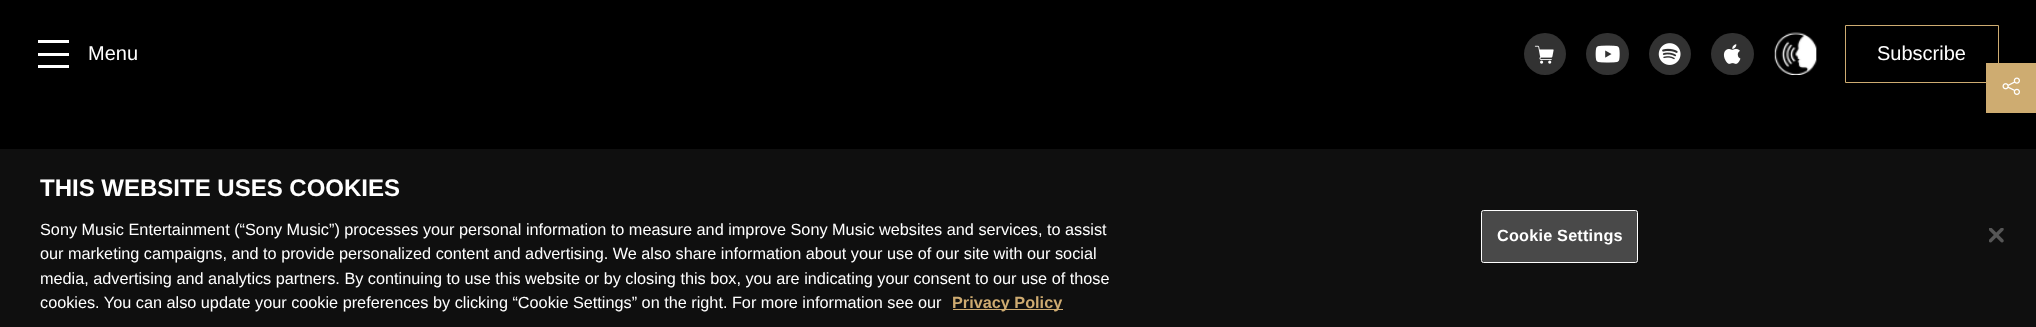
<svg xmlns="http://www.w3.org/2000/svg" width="2036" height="327">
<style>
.a{font:20px Liberation Sans;fill:#fff}
.b{font:bold 24px Liberation Sans;fill:#fff}
.c{font:16.25px Liberation Sans;fill:#fff}
.d{font:bold 16.25px Liberation Sans;fill:#ceab71}
.e{font:bold 16.25px Liberation Sans;letter-spacing:0.2px;fill:#fff}
</style>
<rect width="100%" height="100%" fill="#000"/>
<path fill="#fff" d="M38 65h31v3H38z"/>
<path fill="#fff" d="M38 40h31v3H38z"/>
<path fill="#fff" d="M38 53h31v3H38z"/>
<circle fill="#323232" cx="1545" cy="54" r="21"/>
<image href="1.png" x="1534" y="45" width="20" height="19"/>
<rect fill="#323232" x="1586" y="33" width="43" height="42" rx="21"/>
<image href="2.png" x="1595" y="45" width="25" height="18"/>
<circle fill="#323232" cx="1670" cy="54" r="21"/>
<image href="3.png" x="1658" y="43" width="23" height="22"/>
<rect fill="#323232" x="1711" y="33" width="43" height="42" rx="21"/>
<image href="4.png" x="1723" y="44" width="18" height="20"/>
<image href="5.png" x="1774" y="32" width="43" height="43"/>
<path fill="#ceac71" d="M1986 63h50v50H1986z"/>
<path fill="none" stroke="#ceac71" d="M1845.5 25.5h153v57H1845.5z"/>
<image href="6.png" x="2002" y="77" width="18" height="18"/>
<path fill="#0f0f0f" d="M0 149h2036v178H0z"/>
<path fill="#ceab71" d="M953 309h110v1H953z"/>
<rect fill="#494949" stroke="#fff" x="1481.5" y="210.5" width="156" height="52" rx="2"/>
<image href="7.png" x="1989" y="228" width="15" height="15"/>
<text class="a" x="88" y="60">Menu</text>
<text class="a" x="1877" y="60">Subscribe</text>
<text class="b" x="40" y="196">THIS WEBSITE USES COOKIES</text>
<text class="c" x="40" y="235">Sony Music Entertainment (“Sony Music”) processes your personal information to measure and improve Sony Music websites and services, to assist</text>
<text class="c" x="40" y="259">our marketing campaigns, and to provide personalized content and advertising. We also share information about your use of our site with our social</text>
<text class="c" x="40" y="284">media, advertising and analytics partners. By continuing to use this website or by closing this box, you are indicating your consent to our use of those</text>
<text class="c" x="40" y="308">cookies. You can also update your cookie preferences by clicking “Cookie Settings” on the right. For more information see our</text>
<text class="d" x="952" y="308">Privacy Policy</text>
<text class="e" x="1497" y="241">Cookie Settings</text>
</svg>
